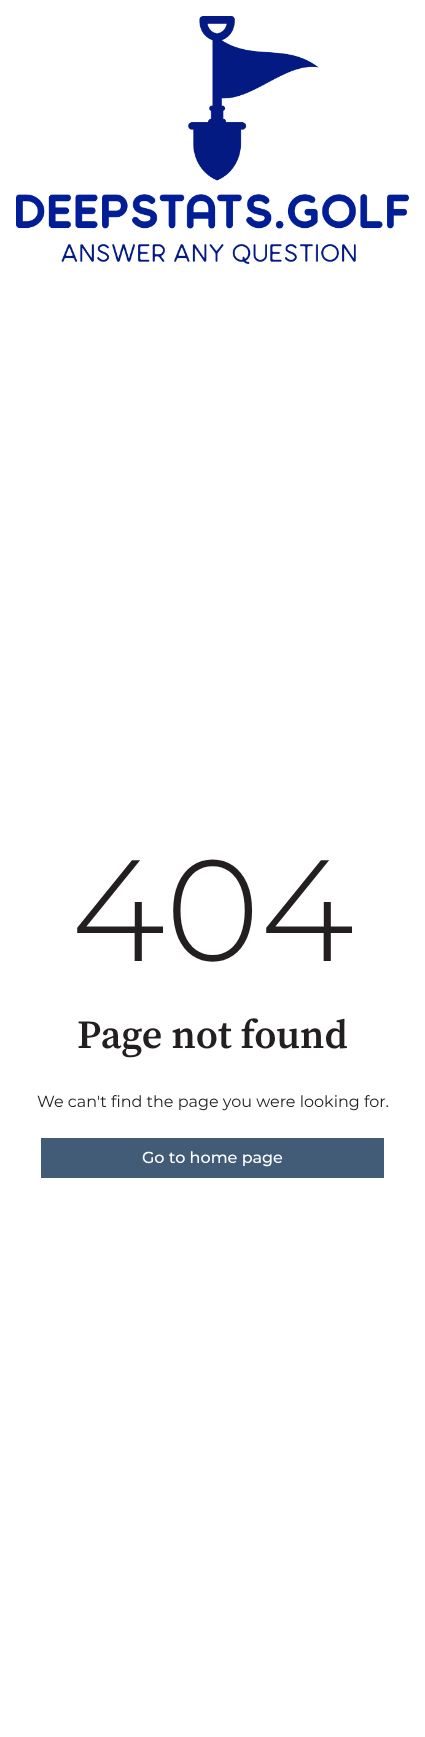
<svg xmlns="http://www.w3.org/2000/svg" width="425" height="1737">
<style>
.a{font:300 144px Montserrat;fill:#231f20}
.b{font:600 40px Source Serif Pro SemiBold;fill:#231f20}
.c{font:16px Montserrat;fill:#231f20}
.d{font:500 16px Montserrat;fill:#fff}
</style>
<rect width="100%" height="100%" fill="#fff"/>
<image href="1.png" x="16" y="16" width="393" height="248"/>
<path fill="#425b76" d="M41 1138h343v40H41z"/>
<text class="a" x="71" y="961">404</text>
<text class="b" x="77" y="1048">Page not found</text>
<text class="c" x="37" y="1107">We can't find the page you were looking for.</text>
<text class="d" x="142" y="1163">Go to home page</text>
</svg>
